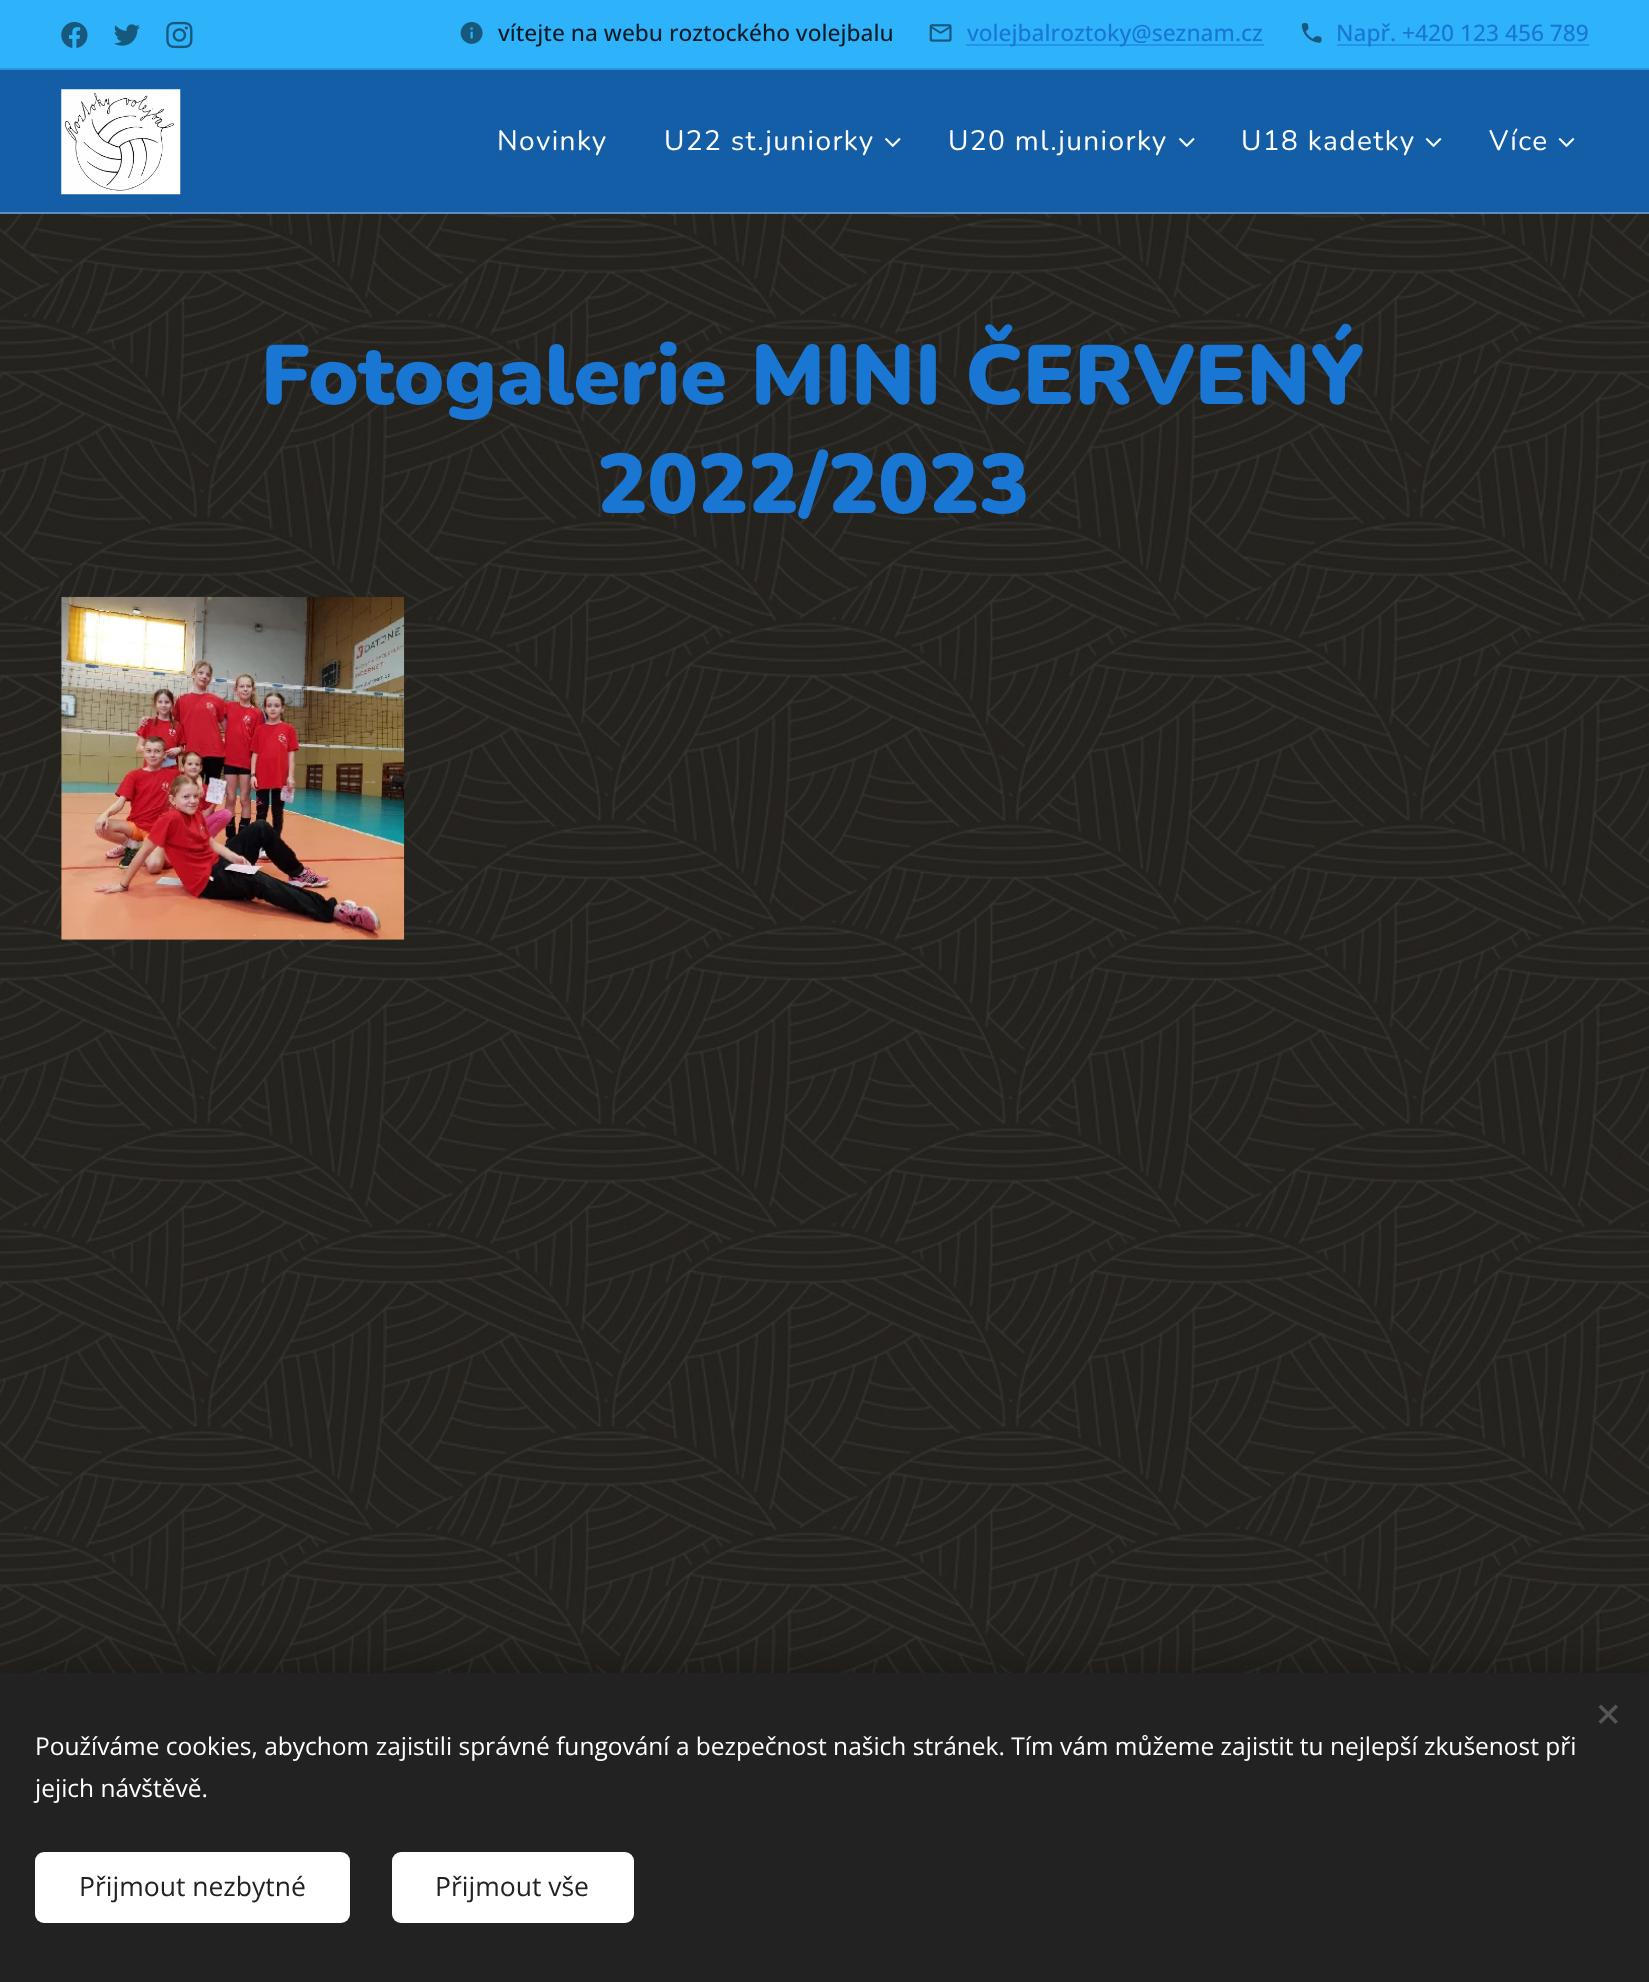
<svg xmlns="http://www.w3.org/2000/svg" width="1649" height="1982">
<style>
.a{font:500 22.75px Open Sans;fill:#071b26}
.b{font:500 22.75px Open Sans;fill:#1976d2}
.c{font:28px Nunito;letter-spacing:1.4px;fill:#fff}
.d{font:900 84px Nunito;fill:#1976d2}
.e{font:24.5px Open Sans;fill:#fff}
.f{font:26.5px Open Sans;fill:#222}
</style>
<rect width="100%" height="100%" fill="#fff"/>
<path fill="#2eb2fa" d="M0 0h1649v68H0z"/>
<image href="1.png" x="61" y="22" width="27" height="26"/>
<image href="2.png" x="114" y="24" width="26" height="22"/>
<image href="3.png" x="166" y="21" width="27" height="28"/>
<image href="4.png" x="460" y="22" width="23" height="22"/>
<image href="5.png" x="929" y="24" width="23" height="18"/>
<path fill="#2494e6" d="M966 44h298v2H966z"/>
<image href="6.png" x="1301" y="23" width="21" height="20"/>
<path fill="#2494e6" d="M1337 44h252v2H1337z"/>
<path fill="#2797d5" d="M0 68h1649v2H0z"/>
<path fill="#145ea8" d="M0 70h1649v142H0z"/>
<image href="7.png" x="61" y="89" width="120" height="106"/>
<image href="8.png" x="885" y="138" width="16" height="9"/>
<image href="8.png" x="1179" y="138" width="16" height="9"/>
<image href="9.png" x="1425" y="138" width="17" height="9"/>
<image href="9.png" x="1558" y="138" width="17" height="9"/>
<path fill="#5b8ec2" d="M0 212h1649v2H0z"/>
<image href="10.png" x="0" y="214" width="1649" height="1459"/>
<image href="11.png" x="61" y="596" width="344" height="344"/>
<path fill="#00000054" filter="blur(22px)" d="M0 1673h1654v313H0z"/>
<path fill="#222" d="M0 1673h1649v309H0z"/>
<path fill="#555" d="M1598.5 1721.5l17-17l2.5 2.5l-17 17z"/>
<path fill="#555" d="M1601 1704.5l17 17l-2.5 2.5l-17-17z"/>
<rect fill="#fff" x="35" y="1852" width="315" height="71" rx="9"/>
<rect fill="#fff" x="392" y="1852" width="242" height="71" rx="9"/>
<text class="a" x="498" y="41">vítejte na webu roztockého volejbalu</text>
<text class="b" x="967" y="41">volejbalroztoky@seznam.cz</text>
<text class="b" x="1336" y="41">Např. +420 123 456 789</text>
<text class="c" x="497" y="150">Novinky</text>
<text class="c" x="664" y="150">U22 st.juniorky</text>
<text class="c" x="948" y="150">U20 ml.juniorky</text>
<text class="c" x="1241" y="150">U18 kadetky</text>
<text class="c" x="1489" y="150">Více</text>
<text class="d" x="261" y="404">Fotogalerie MINI ČERVENÝ</text>
<text class="d" x="597" y="513">2022/2023</text>
<text class="e" x="35" y="1755">Používáme cookies, abychom zajistili správné fungování a bezpečnost našich stránek. Tím vám můžeme zajistit tu nejlepší zkušenost při</text>
<text class="e" x="35" y="1797">jejich návštěvě.</text>
<text class="f" x="79" y="1896">Přijmout nezbytné</text>
<text class="f" x="435" y="1896">Přijmout vše</text>
</svg>
